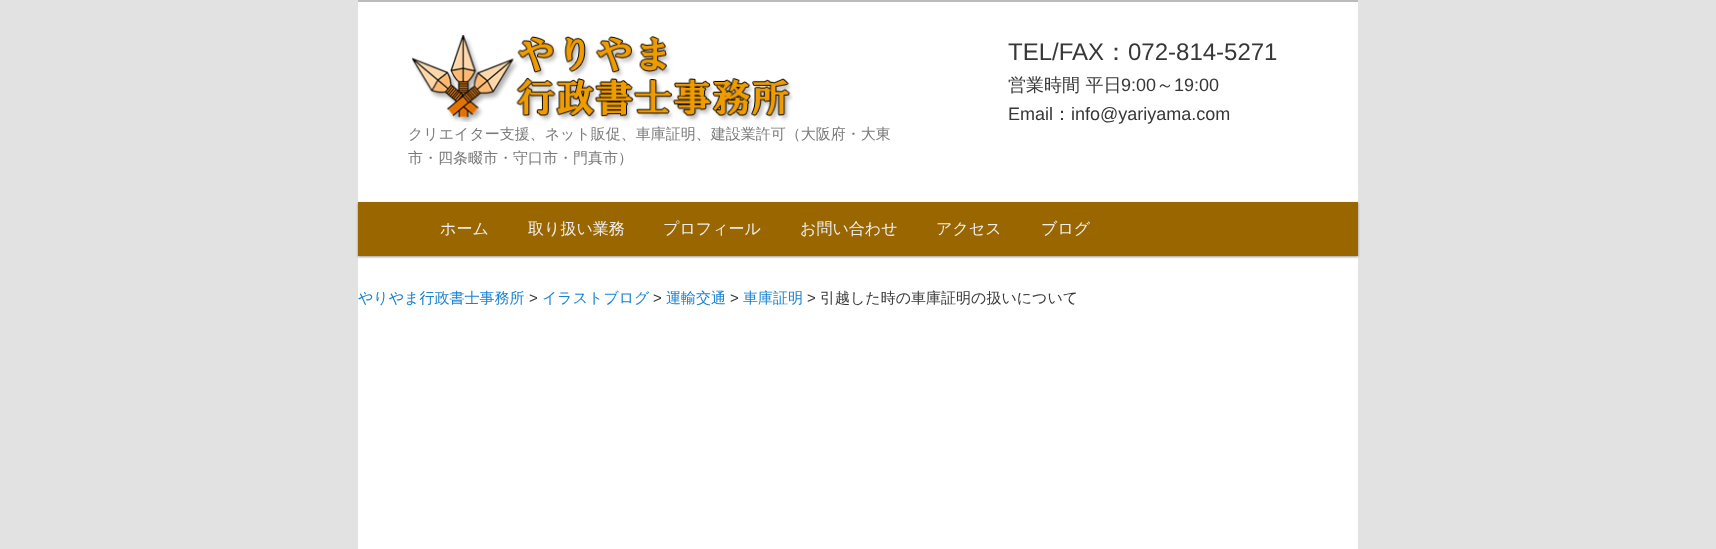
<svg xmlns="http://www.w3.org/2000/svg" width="1716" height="549">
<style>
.a{font:24px Liberation Sans;fill:#373737}
.b{font:500 24px WenQuanYi Zen Hei;fill:#373737}
.c{font:500 18px WenQuanYi Zen Hei;fill:#373737}
.d{font:18px Liberation Sans;fill:#373737}
.e{font:500 15px WenQuanYi Zen Hei;fill:#7a7a7a}
.f{font:500 16px WenQuanYi Zen Hei;fill:#eee}
.g{font:500 15px WenQuanYi Zen Hei;fill:#1982d1}
.h{font:15px Liberation Sans;fill:#373737}
.i{font:500 15px WenQuanYi Zen Hei;fill:#373737}
</style>
<rect width="100%" height="100%" fill="#e2e2e2"/>
<path fill="#fff" d="M358 2h1000v547H358z"/>
<path fill="#bbb" d="M358 0h1000v2H358z"/>
<image href="1.png" x="411" y="35" width="382" height="87"/>
<path fill="#00000066" filter="blur(1px)" d="M358 203h1000v54H358z"/>
<path fill="#960" d="M358 202h1000v54H358z"/>
<text class="a" x="1008" y="60">TEL/FAX</text>
<text class="b" x="1104" y="60">：</text>
<text class="a" x="1128" y="60">072-814-5271</text>
<text class="c" x="1008" y="91">営業時間 平日</text>
<text class="d" x="1121" y="91">9:00</text>
<text class="c" x="1156" y="91">～</text>
<text class="d" x="1174" y="91">19:00</text>
<text class="d" x="1008" y="120">Email</text>
<text class="c" x="1053" y="120">：</text>
<text class="d" x="1071" y="120">info@yariyama.com</text>
<text class="e" x="408" y="139">クリエイター支援、ネット販促、車庫証明、建設業許可（大阪府・大東</text>
<text class="e" x="408" y="163">市・四条畷市・守口市・門真市）</text>
<text class="f" x="440" y="234">ホーム</text>
<text class="f" x="528" y="234">取り扱い業務</text>
<text class="f" x="663" y="234">プロフィール</text>
<text class="f" x="800" y="234">お問い合わせ</text>
<text class="f" x="936" y="234">アクセス</text>
<text class="f" x="1041" y="234">ブログ</text>
<text class="g" x="358" y="303">やりやま行政書士事務所</text>
<text class="h" x="529" y="303">&gt;</text>
<text class="g" x="542" y="303">イラストブログ</text>
<text class="h" x="653" y="303">&gt;</text>
<text class="g" x="666" y="303">運輸交通</text>
<text class="h" x="730" y="303">&gt;</text>
<text class="g" x="743" y="303">車庫証明</text>
<text class="h" x="807" y="303">&gt;</text>
<text class="i" x="820" y="303">引越した時の車庫証明の扱いについて</text>
</svg>
